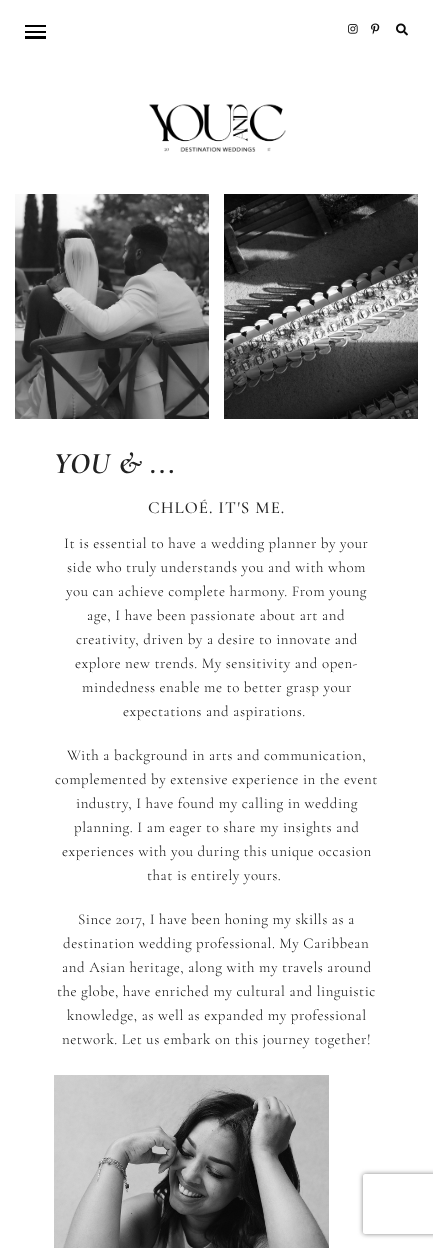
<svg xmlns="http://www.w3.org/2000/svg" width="433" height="1248">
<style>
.a{font:italic bold 30px Cormorant Garamond;letter-spacing:1px;fill:#222}
.b{font:500 17px Cormorant Garamond;letter-spacing:1px;fill:#222}
.c{font:300 15px Cormorant Garamond;letter-spacing:0.5px;fill:#000}
</style>
<defs>
<clipPath id="clip1"><path d="M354 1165h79v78h-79zm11 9h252c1 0 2 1 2 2v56c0 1-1 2-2 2h-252c-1 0-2-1-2-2v-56c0-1 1-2 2-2z" clip-rule="evenodd"/></clipPath>
</defs>
<rect width="100%" height="100%" fill="#fff"/>
<path fill="#000" d="M25 25h21v2H25z"/>
<path fill="#000" d="M25 31h21v2H25z"/>
<path fill="#000" d="M25 36h21v3H25z"/>
<image href="1.png" x="348" y="24" width="10" height="10"/>
<image href="2.png" x="371" y="23" width="9" height="12"/>
<image href="3.png" x="396" y="23" width="12" height="13"/>
<image href="4.png" x="149" y="104" width="137" height="48"/>
<image href="5.png" x="15" y="194" width="194" height="225"/>
<image href="6.png" x="224" y="194" width="194" height="225"/>
<image href="7.png" x="54" y="1075" width="275" height="173"/>
<g clip-path="url(#clip1)">
<rect fill="#808080" filter="blur(2.5px)" x="363" y="1174" width="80" height="60" rx="2"/>
</g>
<text class="a" x="54" y="473">YOU &amp; ...</text>
<text class="b" x="148" y="513">CHLOÉ. IT'S ME.</text>
<text class="c" x="64" y="548">It is essential to have a wedding planner by your</text>
<text class="c" x="67" y="572">side who truly understands you and with whom</text>
<text class="c" x="66" y="596">you can achieve complete harmony. From young</text>
<text class="c" x="87" y="620">age, I have been passionate about art and</text>
<text class="c" x="76" y="644">creativity, driven by a desire to innovate and</text>
<text class="c" x="75" y="668">explore new trends. My sensitivity and open-</text>
<text class="c" x="82" y="692">mindedness enable me to better grasp your</text>
<text class="c" x="123" y="716">expectations and aspirations.</text>
<text class="c" x="67" y="760">With a background in arts and communication,</text>
<text class="c" x="55" y="784">complemented by extensive experience in the event</text>
<text class="c" x="76" y="808">industry, I have found my calling in wedding</text>
<text class="c" x="74" y="832">planning. I am eager to share my insights and</text>
<text class="c" x="62" y="856">experiences with you during this unique occasion</text>
<text class="c" x="147" y="880">that is entirely yours.</text>
<text class="c" x="78" y="924">Since 2017, I have been honing my skills as a</text>
<text class="c" x="63" y="948">destination wedding professional. My Caribbean</text>
<text class="c" x="62" y="972">and Asian heritage, along with my travels around</text>
<text class="c" x="57" y="996">the globe, have enriched my cultural and linguistic</text>
<text class="c" x="67" y="1020">knowledge, as well as expanded my professional</text>
<text class="c" x="62" y="1044">network. Let us embark on this journey together!</text>
</svg>
